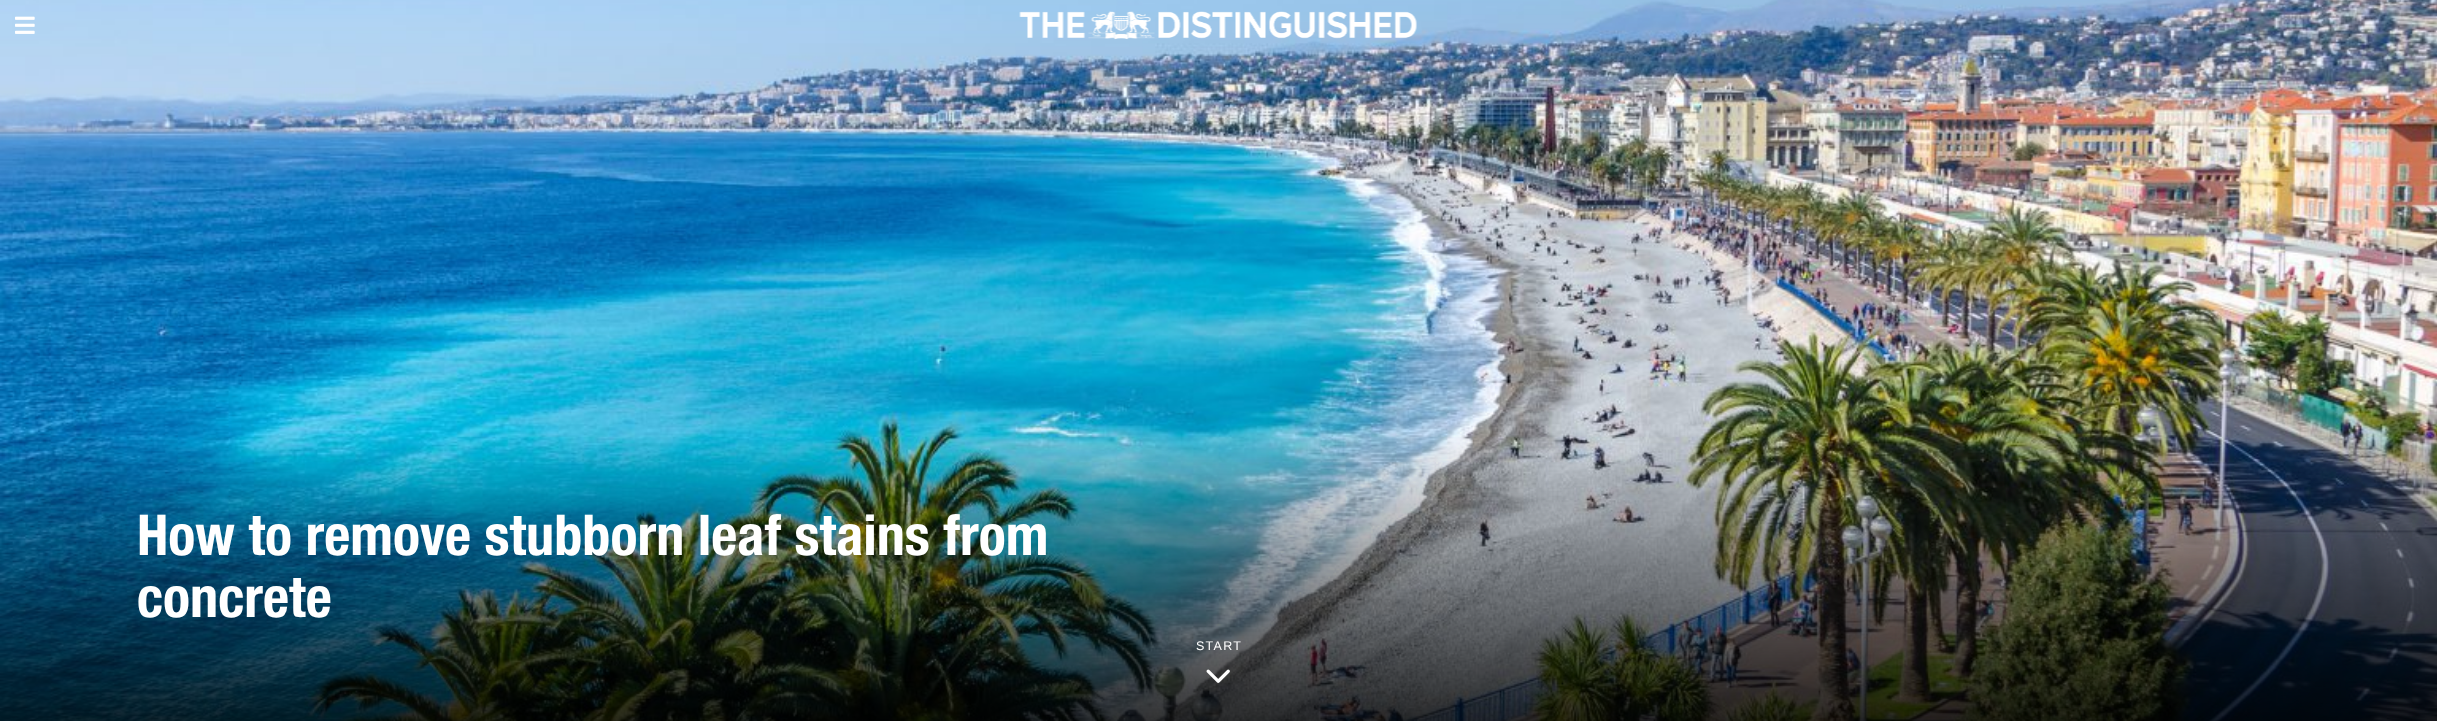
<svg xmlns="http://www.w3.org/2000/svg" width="2437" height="721">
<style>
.a{font:bold 56.25px Helvetica Neue;fill:#fff}
.b{font:12.5px Liberation Sans;letter-spacing:1.25px;fill:#fff}
</style>
<rect width="100%" height="100%" fill="#fff"/>
<image href="3.png" x="0" y="0" width="2437" height="721"/>
<image href="1.png" x="15" y="16" width="20" height="18"/>
<image href="2.png" x="1019" y="11" width="398" height="29"/>
<image href="4.png" x="1206" y="669" width="24" height="14"/>
<text class="a" x="137" y="555">How to remove stubborn leaf stains from</text>
<text class="a" x="137" y="617">concrete</text>
<text class="b" x="1196" y="650">START</text>
</svg>
